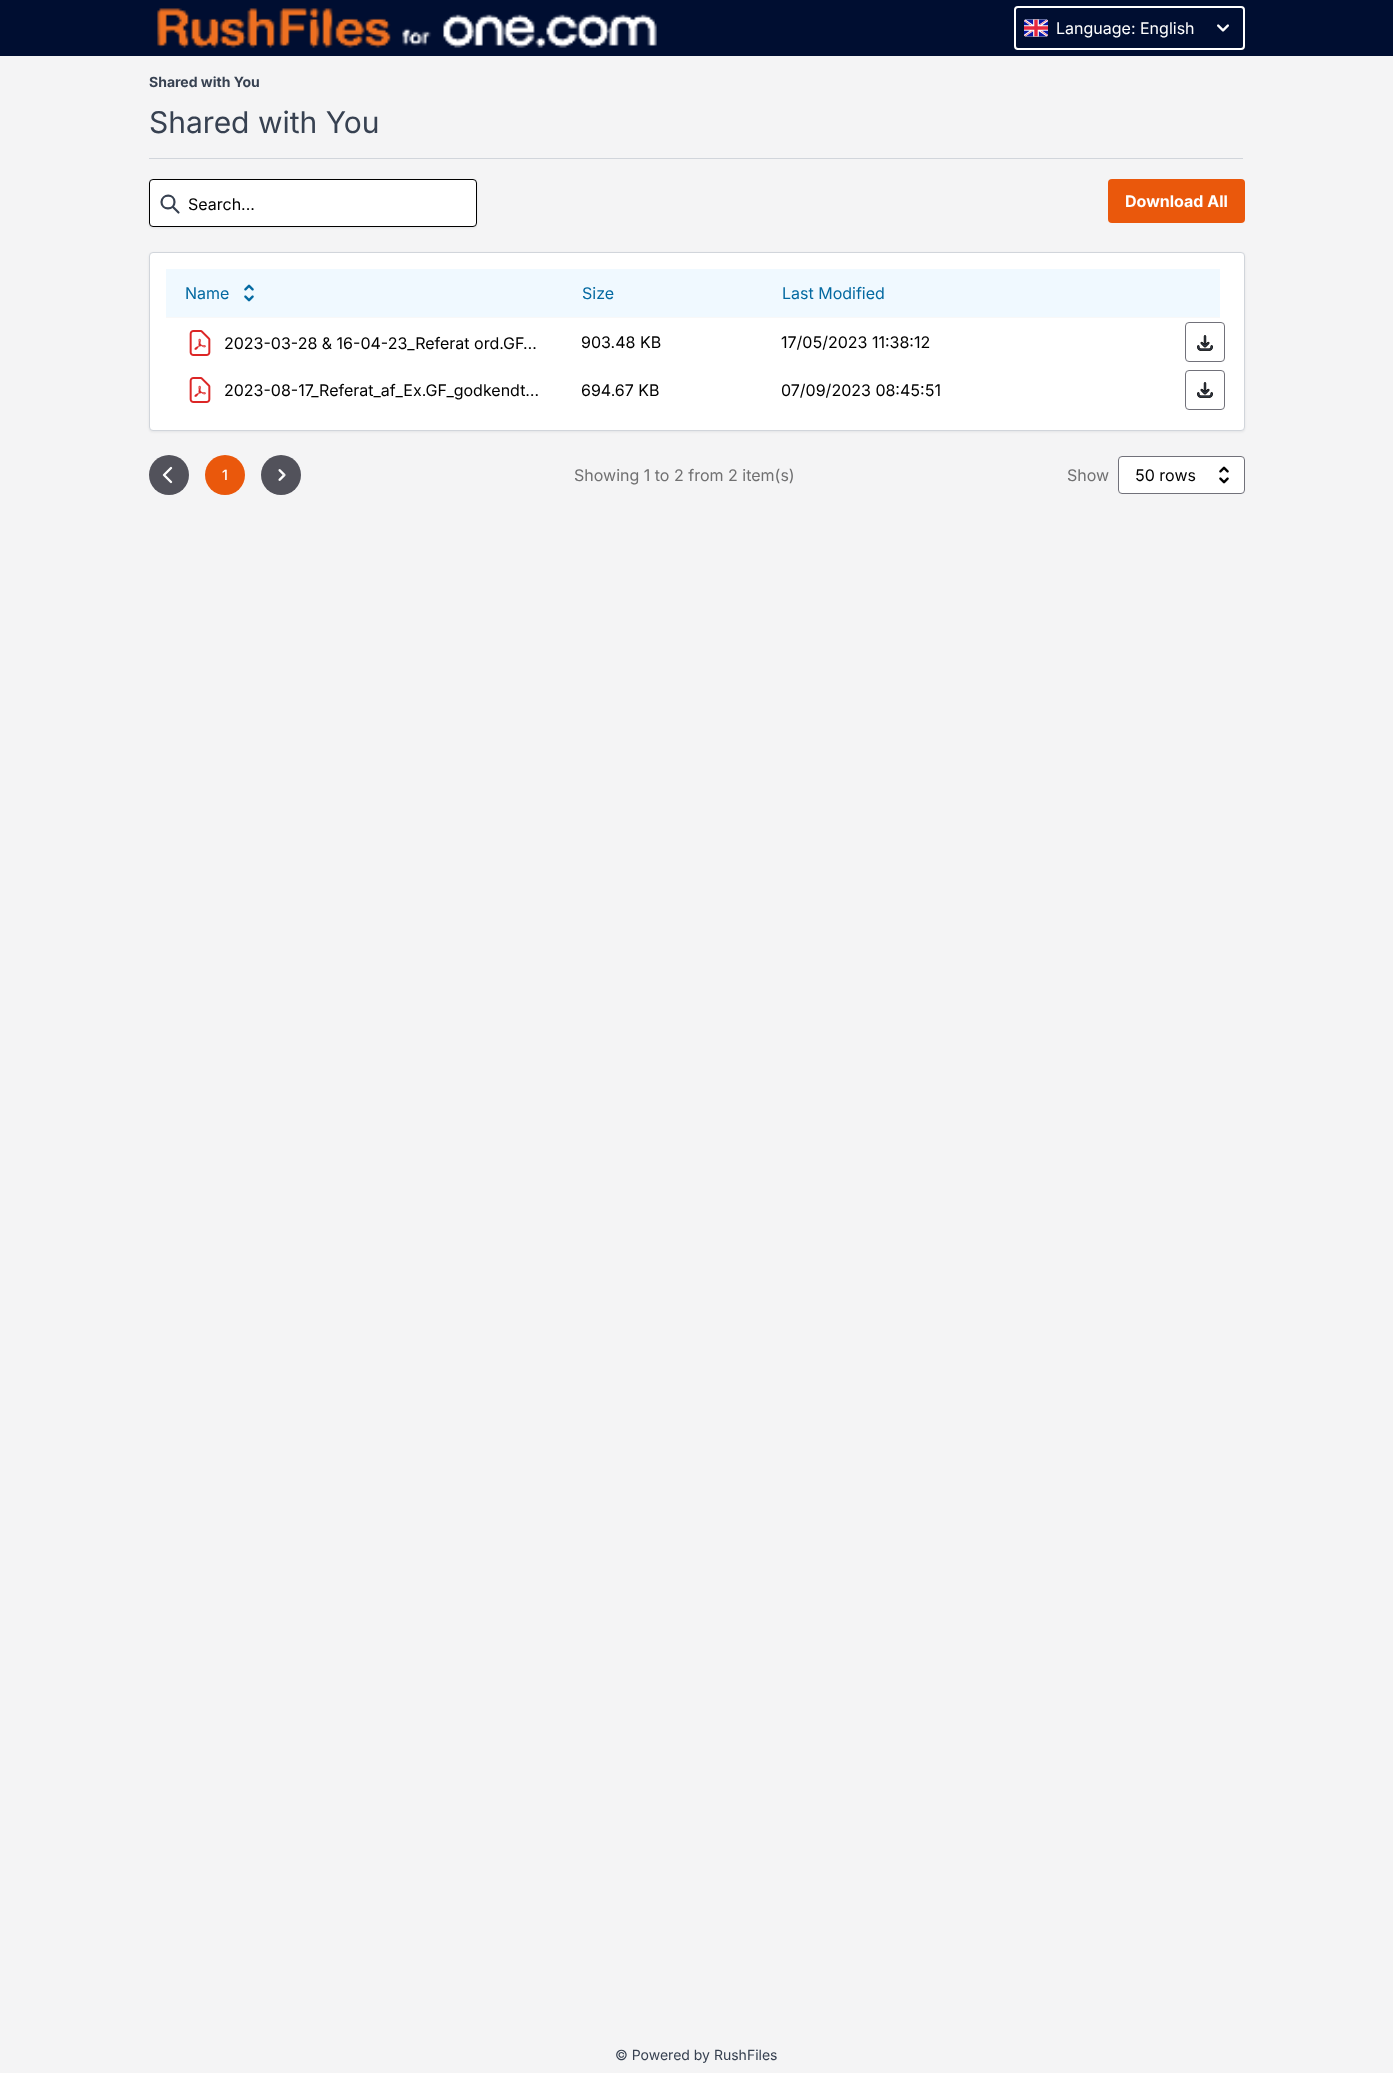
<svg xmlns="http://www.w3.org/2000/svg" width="1393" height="2073">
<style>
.a{font:16px Inter;fill:#fff}
.b{font:bold 14px Inter;fill:#374151}
.c{font:30px Inter;fill:#374151}
.d{font:16px Inter;fill:#000}
.e{font:bold 16px Inter;fill:#fff}
.f{font:16px Inter;fill:#0369a1}
.g{font:500 14px Inter;fill:#fff}
.h{font:16px Inter;fill:#707071}
.i{font:14px Inter;fill:#374151}
</style>
<rect width="100%" height="100%" fill="#f4f4f5"/>
<path fill="#000e31" d="M0 0h1393v56H0z"/>
<image href="1.png" x="157" y="8" width="500" height="40"/>
<rect fill="none" stroke="#fff" stroke-width="2" x="1015" y="7" width="229" height="42" rx="3"/>
<image href="2.png" x="1024" y="19" width="24" height="18"/>
<image href="3.png" x="1217" y="24" width="12" height="8"/>
<path fill="#d1d5db" d="M149 158h1094v1H149z"/>
<rect fill="#1f293714" filter="blur(1px)" x="149" y="180" width="328" height="48" rx="4"/>
<rect fill="#fff" stroke="#000" x="149.5" y="179.5" width="327" height="47" rx="3.5"/>
<path fill="none" stroke="#374151" stroke-width="2.2" stroke-linecap="round" stroke-linejoin="round" d="M178.5 212.5l-5.5-5.5m1.5-5c0 8.5-13 8.5-13 0c.5-8.5 13-8.5 13 0z"/>
<rect fill="#ea580c" x="1108" y="179" width="137" height="44" rx="4"/>
<rect fill="#1f293714" filter="blur(1px)" x="149" y="253" width="1096" height="179" rx="4"/>
<rect fill="#fff" stroke="#d1d5db" x="149.5" y="252.5" width="1095" height="178" rx="3.5"/>
<path fill="#f8f8f8" d="M166 317h1054v1H166z"/>
<path fill="#f0f9ff" d="M166 269h1054v48H166z"/>
<image href="4.png" x="244" y="284" width="10" height="18"/>
<image href="5.png" x="189" y="330" width="22" height="26"/>
<image href="5.png" x="189" y="377" width="22" height="26"/>
<rect fill="none" stroke="#71717a" x="1185.5" y="322.5" width="39" height="39" rx="3.5"/>
<image href="6.png" x="1197" y="335" width="16" height="16"/>
<rect fill="none" stroke="#71717a" x="1185.5" y="370.5" width="39" height="39" rx="3.5"/>
<image href="6.png" x="1197" y="382" width="16" height="16"/>
<circle fill="#52525b" cx="169" cy="475" r="20"/>
<path fill="none" stroke="#fff" stroke-width="2.4" stroke-linecap="round" stroke-linejoin="round" d="M171 482l-7-7l7-7"/>
<circle fill="#ea580c" cx="225" cy="475" r="20"/>
<circle fill="#52525b" cx="281" cy="475" r="20"/>
<image href="7.png" x="278" y="469" width="8" height="12"/>
<rect fill="#fff" stroke="#71717a" x="1118.5" y="456.5" width="126" height="37" rx="3.5"/>
<image href="8.png" x="1219" y="466" width="10" height="18"/>
<text class="a" x="1056" y="34">Language: English</text>
<text class="b" x="149" y="87">Shared with You</text>
<text class="c" x="149" y="133">Shared with You</text>
<text class="d" x="188" y="210">Search...</text>
<text class="e" x="1125" y="207">Download All</text>
<text class="f" x="185" y="299">Name</text>
<text class="f" x="582" y="299">Size</text>
<text class="f" x="782" y="299">Last Modified</text>
<text class="d" x="224" y="349">2023-03-28 &amp; 16-04-23_Referat ord.GF…</text>
<text class="d" x="581" y="348">903.48 KB</text>
<text class="d" x="781" y="348">17/05/2023 11:38:12</text>
<text class="d" x="224" y="396">2023-08-17_Referat_af_Ex.GF_godkendt…</text>
<text class="d" x="581" y="396">694.67 KB</text>
<text class="d" x="781" y="396">07/09/2023 08:45:51</text>
<text class="g" x="222" y="480">1</text>
<text class="h" x="574" y="481">Showing 1 to 2 from 2 item(s)</text>
<text class="h" x="1067" y="481">Show</text>
<text class="d" x="1135" y="481">50 rows</text>
<text class="i" x="615" y="2060">© Powered by RushFiles</text>
</svg>
